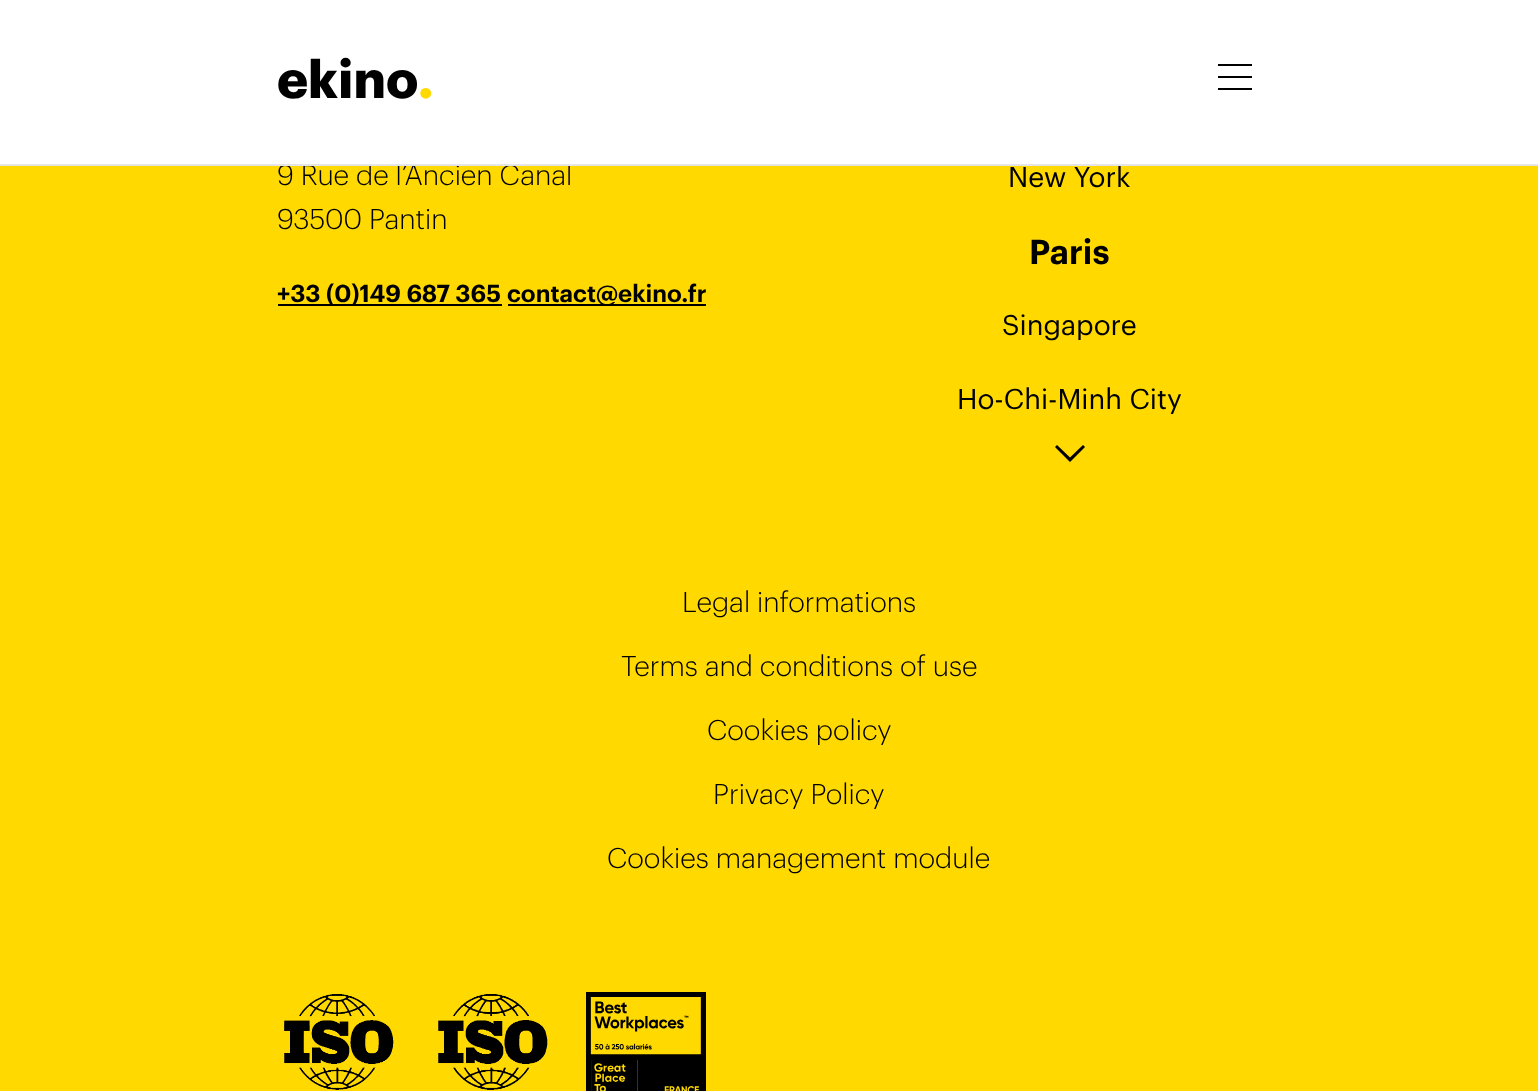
<svg xmlns="http://www.w3.org/2000/svg" width="1538" height="1091">
<style>
.a{font:300 28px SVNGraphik;fill:#000}
.b{font:bold 52px Graphik;fill:#ffd900}
.c{font:bold 52px Graphik;fill:#000}
.d{font:600 24px SVNGraphik;fill:#000}
.e{font:28px Graphik;fill:#000}
.f{font:600 34px SVNGraphik;fill:#000}
</style>
<rect width="100%" height="100%" fill="#ffd900"/>
<path fill="#000" d="M278 304h224v2H278z"/>
<path fill="#000" d="M508 304h198v2H508z"/>
<path fill="#000" d="M1070 462l-15-15l2-2l13 12.5l13-12.5l2 2z"/>
<image href="1.png" x="284" y="994" width="110" height="96"/>
<image href="2.png" x="438" y="994" width="110" height="96"/>
<image href="3.png" x="586" y="992" width="120" height="99"/>
<text class="a" x="277" y="185">9 Rue de l’Ancien Canal</text>
<path fill="#fff" d="M0 0h1538v164H0z"/>
<path fill="#000" d="M1218 88h34v2H1218z"/>
<path fill="#000" d="M1218 76h34v2H1218z"/>
<path fill="#000" d="M1218 64h34v2H1218z"/>
<text class="b" x="418" y="98">.</text>
<text class="c" x="277" y="98">ekino</text>
<text class="a" x="277" y="229">93500 Pantin</text>
<text class="d" x="277" y="302">+33 (0)149 687 365</text>
<text class="d" x="507" y="302">contact@ekino.fr</text>
<text class="e" x="1008" y="187">New York</text>
<path fill="#e5e5e5" d="M0 164h1538v2H0z"/>
<text class="f" x="1029" y="264">Paris</text>
<text class="e" x="1002" y="335">Singapore</text>
<text class="e" x="957" y="409">Ho-Chi-Minh City</text>
<text class="a" x="682" y="612">Legal informations</text>
<text class="a" x="621" y="676">Terms and conditions of use</text>
<text class="a" x="707" y="740">Cookies policy</text>
<text class="a" x="713" y="804">Privacy Policy</text>
<text class="a" x="607" y="868">Cookies management module</text>
</svg>
